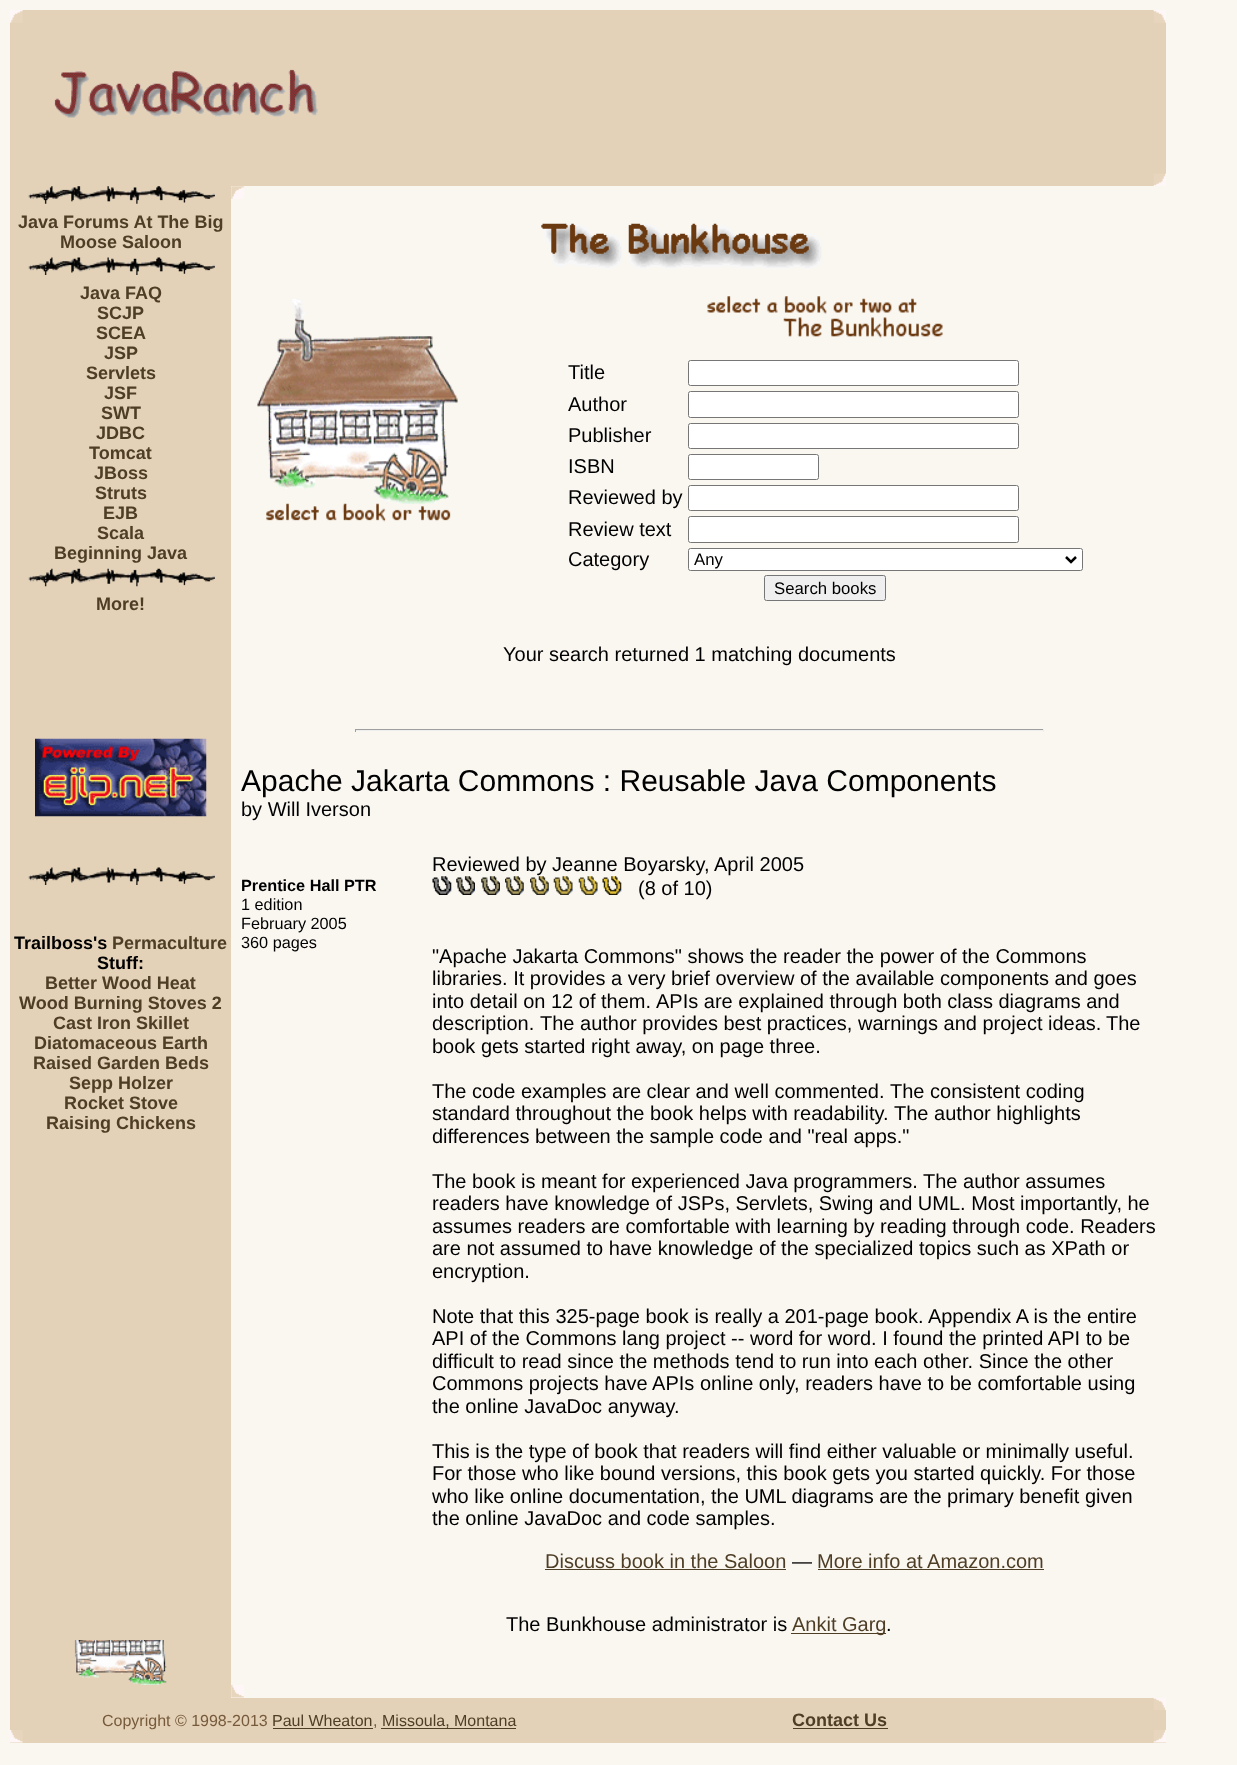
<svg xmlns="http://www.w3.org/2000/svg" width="1237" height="1765">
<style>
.a{font:bold 18px Liberation Sans;fill:#4e3e26}
.b{font:bold 18px Liberation Sans;fill:#000}
.c{font:20px Liberation Sans;fill:#000}
.d{font:16.75px Liberation Sans;fill:#000}
.e{font:30px Liberation Sans;fill:#000}
.f{font:bold 16.25px Liberation Sans;fill:#000}
.g{font:16.25px Liberation Sans;fill:#000}
.h{font:20px Liberation Sans;fill:#4e3e26}
.i{font:16px Liberation Sans;fill:#765a3b}
.j{font:16px Liberation Sans;fill:#4e3e26}
</style>
<rect width="100%" height="100%" fill="#faf7f1"/>
<path fill="#e4d2b8" d="M10 10h1156v176H10z"/>
<image href="1.png" x="10" y="10" width="13" height="13"/>
<image href="2.png" x="1153" y="10" width="13" height="13"/>
<image href="3.png" x="53" y="69" width="265" height="49"/>
<image href="4.png" x="1153" y="173" width="13" height="13"/>
<path fill="#e4d2b8" d="M10 186h221v1512H10z"/>
<image href="5.png" x="28" y="186" width="187" height="18"/>
<image href="6.png" x="28" y="257" width="187" height="18"/>
<image href="7.png" x="28" y="568" width="187" height="19"/>
<image href="8.png" x="35" y="738" width="172" height="79"/>
<image href="6.png" x="28" y="867" width="187" height="18"/>
<image href="9.png" x="231" y="186" width="13" height="13"/>
<image href="10.png" x="541" y="223" width="281" height="46"/>
<image href="11.png" x="257" y="299" width="201" height="223"/>
<image href="12.png" x="707" y="296" width="236" height="42"/>
<rect fill="#fff" stroke="#767676" x="688.5" y="360.5" width="330" height="25" rx="2"/>
<rect fill="#fff" stroke="#767676" x="688.5" y="391.5" width="330" height="26" rx="2"/>
<rect fill="#fff" stroke="#767676" x="688.5" y="423.5" width="330" height="25" rx="2"/>
<rect fill="#fff" stroke="#767676" x="688.5" y="454.5" width="130" height="25" rx="2"/>
<rect fill="#fff" stroke="#767676" x="688.5" y="485.5" width="330" height="25" rx="2"/>
<rect fill="#fff" stroke="#767676" x="688.5" y="516.5" width="330" height="26" rx="2"/>
<rect fill="#fff" stroke="#767676" x="688.5" y="548.5" width="394" height="22" rx="2"/>
<path fill="none" stroke="#000" stroke-width="2.5" d="M1066 557l5 5l5-5"/>
<rect fill="#efefef" stroke="#767676" x="764.5" y="575.5" width="121" height="25" rx="2"/>
<path fill="#9f9f9f" d="M355 729h689v1H355z"/>
<path fill="#eee" d="M1043 729h1v3H1043z"/>
<path fill="#eee" d="M355 730h689v1H355z"/>
<path fill="#9f9f9f" d="M355 729h1v3H355z"/>
<image href="13.png" x="432" y="876" width="20" height="19"/>
<image href="14.png" x="456" y="876" width="19" height="19"/>
<image href="15.png" x="481" y="876" width="19" height="19"/>
<image href="16.png" x="505" y="876" width="19" height="19"/>
<image href="17.png" x="530" y="876" width="19" height="19"/>
<image href="18.png" x="553" y="876" width="20" height="19"/>
<image href="19.png" x="578" y="876" width="20" height="19"/>
<image href="20.png" x="602" y="876" width="20" height="19"/>
<path fill="#4e3e26" d="M545 1569h241v1H545z"/>
<path fill="#4e3e26" d="M818 1569h226v1H818z"/>
<path fill="#4e3e26" d="M791 1633h95v1H791z"/>
<image href="21.png" x="74" y="1640" width="93" height="45"/>
<image href="22.png" x="231" y="1685" width="13" height="13"/>
<path fill="#e4d2b8" d="M10 1698h1156v45H10z"/>
<image href="23.png" x="1153" y="1698" width="13" height="12"/>
<path fill="#4e3e26" d="M273 1728h100v1H273z"/>
<path fill="#4e3e26" d="M381 1728h135v1H381z"/>
<path fill="#4e3e26" d="M793 1728h95v1H793z"/>
<image href="24.png" x="10" y="1730" width="13" height="13"/>
<image href="25.png" x="1153" y="1730" width="13" height="13"/>
<text class="a" x="18" y="228">Java Forums At The Big</text>
<text class="a" x="60" y="248">Moose Saloon</text>
<text class="a" x="80" y="299">Java FAQ</text>
<text class="a" x="97" y="319">SCJP</text>
<text class="a" x="96" y="339">SCEA</text>
<text class="a" x="104" y="359">JSP</text>
<text class="a" x="86" y="379">Servlets</text>
<text class="a" x="104" y="399">JSF</text>
<text class="a" x="101" y="419">SWT</text>
<text class="a" x="96" y="439">JDBC</text>
<text class="a" x="89" y="459">Tomcat</text>
<text class="a" x="94" y="479">JBoss</text>
<text class="a" x="95" y="499">Struts</text>
<text class="a" x="103" y="519">EJB</text>
<text class="a" x="97" y="539">Scala</text>
<text class="a" x="54" y="559">Beginning Java</text>
<text class="a" x="96" y="610">More!</text>
<text class="b" x="14" y="949">Trailboss's</text>
<text class="a" x="112" y="949">Permaculture</text>
<text class="b" x="97" y="969">Stuff:</text>
<text class="a" x="45" y="989">Better Wood Heat</text>
<text class="a" x="19" y="1009">Wood Burning Stoves 2</text>
<text class="a" x="53" y="1029">Cast Iron Skillet</text>
<text class="a" x="34" y="1049">Diatomaceous Earth</text>
<text class="a" x="33" y="1069">Raised Garden Beds</text>
<text class="a" x="69" y="1089">Sepp Holzer</text>
<text class="a" x="64" y="1109">Rocket Stove</text>
<text class="a" x="46" y="1129">Raising Chickens</text>
<text class="c" x="568" y="379">Title</text>
<text class="c" x="568" y="411">Author</text>
<text class="c" x="568" y="442">Publisher</text>
<text class="c" x="568" y="473">ISBN</text>
<text class="c" x="568" y="504">Reviewed by</text>
<text class="c" x="568" y="536">Review text</text>
<text class="c" x="568" y="566">Category</text>
<text class="d" x="694" y="565">Any</text>
<text class="d" x="774" y="594">Search books</text>
<text class="c" x="503" y="661">Your search returned 1 matching documents</text>
<text class="e" x="241" y="791">Apache Jakarta Commons : Reusable Java Components</text>
<text class="c" x="241" y="816">by Will Iverson</text>
<text class="f" x="241" y="891">Prentice Hall PTR</text>
<text class="g" x="241" y="910">1 edition</text>
<text class="g" x="241" y="929">February 2005</text>
<text class="g" x="241" y="948">360 pages</text>
<text class="c" x="432" y="871">Reviewed by Jeanne Boyarsky, April 2005</text>
<text class="c" x="638" y="895">(8 of 10)</text>
<text class="c" x="432" y="963">"Apache Jakarta Commons" shows the reader the power of the Commons</text>
<text class="c" x="432" y="985">libraries. It provides a very brief overview of the available components and goes</text>
<text class="c" x="432" y="1008">into detail on 12 of them.</text>
<text class="c" x="656" y="1008">APIs are explained through both class diagrams and</text>
<text class="c" x="432" y="1030">description.</text>
<text class="c" x="540" y="1030">The author provides best practices, warnings and project ideas.</text>
<text class="c" x="1106" y="1030">The</text>
<text class="c" x="432" y="1053">book gets started right away, on page three.</text>
<text class="c" x="432" y="1098">The code examples are clear and well commented.</text>
<text class="c" x="890" y="1098">The consistent coding</text>
<text class="c" x="432" y="1120">standard throughout the book helps with readability.</text>
<text class="c" x="894" y="1120">The author highlights</text>
<text class="c" x="432" y="1143">differences between the sample code and "real apps."</text>
<text class="c" x="432" y="1188">The book is meant for experienced Java programmers.</text>
<text class="c" x="923" y="1188">The author assumes</text>
<text class="c" x="432" y="1210">readers have knowledge of JSPs, Servlets, Swing and UML. Most importantly, he</text>
<text class="c" x="432" y="1233">assumes readers are comfortable with learning by reading through code. Readers</text>
<text class="c" x="432" y="1255">are not assumed to have knowledge of the specialized topics such as XPath or</text>
<text class="c" x="432" y="1278">encryption.</text>
<text class="c" x="432" y="1323">Note that this 325-page book is really a 201-page book. Appendix A is the entire</text>
<text class="c" x="432" y="1345">API of the Commons lang project -- word for word. I found the printed API to be</text>
<text class="c" x="432" y="1368">difficult to read since the methods tend to run into each other. Since the other</text>
<text class="c" x="432" y="1390">Commons projects have APIs online only, readers have to be comfortable using</text>
<text class="c" x="432" y="1413">the online JavaDoc anyway.</text>
<text class="c" x="432" y="1458">This is the type of book that readers will find either valuable or minimally useful.</text>
<text class="c" x="432" y="1480">For those who like bound versions, this book gets you started quickly. For those</text>
<text class="c" x="432" y="1503">who like online documentation, the UML diagrams are the primary benefit given</text>
<text class="c" x="432" y="1525">the online JavaDoc and code samples.</text>
<text class="h" x="545" y="1568">Discuss book in the Saloon</text>
<text class="c" x="792" y="1568">—</text>
<text class="h" x="817" y="1568">More info at Amazon.com</text>
<text class="c" x="506" y="1631">The Bunkhouse administrator is</text>
<text class="h" x="792" y="1631">Ankit Garg</text>
<text class="c" x="886" y="1631">.</text>
<text class="i" x="102" y="1726">Copyright © 1998-2013</text>
<text class="j" x="272" y="1726">Paul Wheaton</text>
<text class="i" x="373" y="1726">,</text>
<text class="j" x="382" y="1726">Missoula, Montana</text>
<text class="a" x="792" y="1726">Contact Us</text>
</svg>
